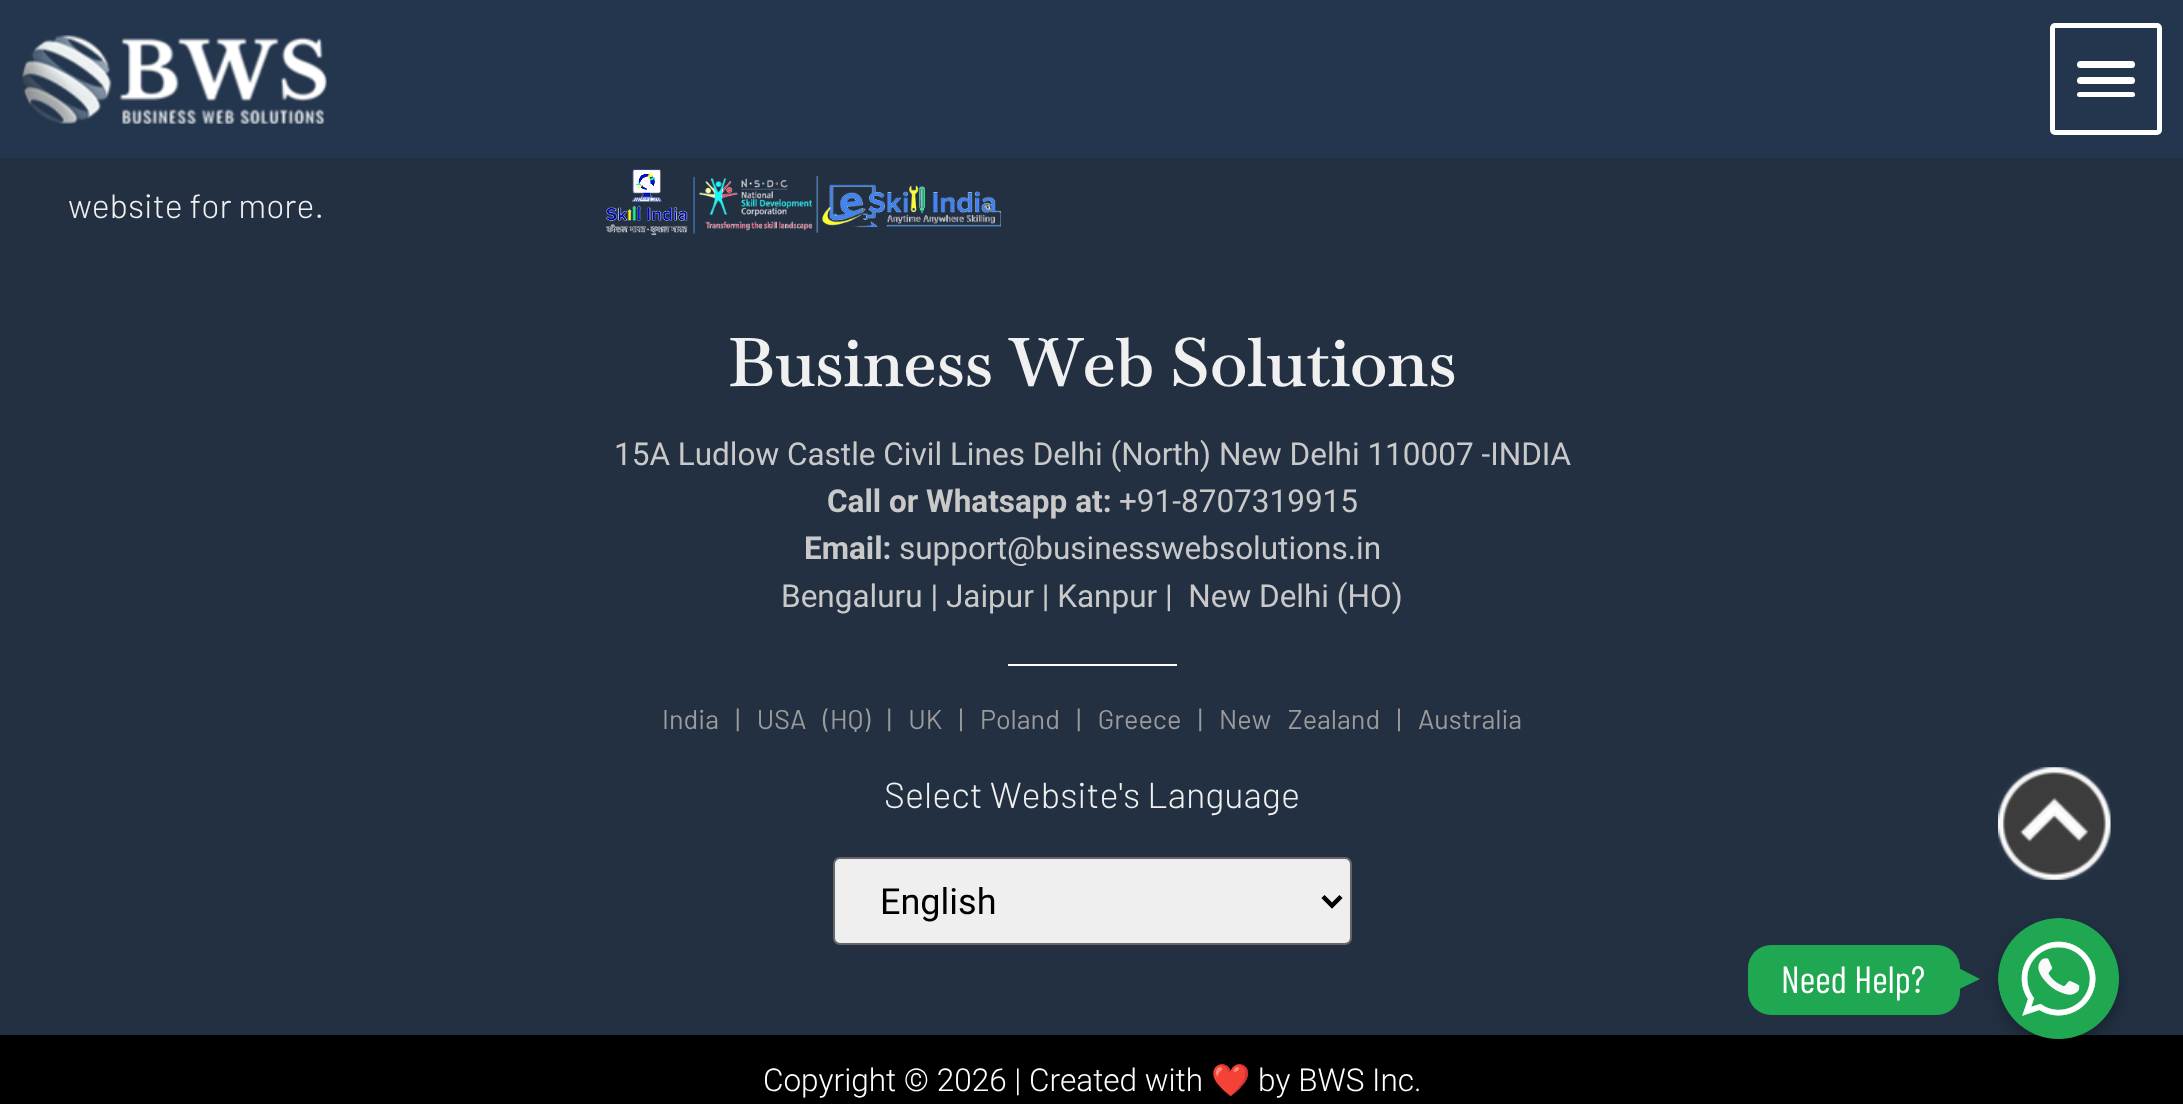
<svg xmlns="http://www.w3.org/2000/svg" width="2183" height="1104">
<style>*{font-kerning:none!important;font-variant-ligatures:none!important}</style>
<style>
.a{font:300 33.75px Barlow;fill:#f0f0f0}
.b{font:600 67.5px Baskervville;fill:#f0f0f0}
.c{font:31.5px Roboto;fill:#c9c9c9}
.d{font:bold 31.5px Roboto;fill:#c9c9c9}
.e{font:27px Barlow;fill:#9b9b9b}
.f{font:300 36px Barlow;fill:#f0f0f0}
.g{font:36px Roboto;fill:#000}
.h{font:300 31.5px Roboto;fill:#fff}
.i{font:31.5px Noto Color Emoji;fill:#fff}
.j{font:38px Barlow Condensed;fill:#fff}
</style>
<rect width="100%" height="100%" fill="#223042"/>
<path fill="#24364e" d="M0 0h2183v158H0z"/>
<image href="1.png" x="22" y="35" width="305" height="89"/>
<rect fill="none" stroke="#fff" stroke-width="5" x="2052.5" y="25.5" width="107" height="107" rx="2.5"/>
<rect fill="#fff" x="2077" y="77" width="58" height="7" rx="3.5"/>
<rect fill="#fff" x="2077" y="61" width="58" height="7" rx="3.5"/>
<rect fill="#fff" x="2077" y="92" width="58" height="5" rx="2.5"/>
<image href="2.png" x="606" y="169" width="396" height="67"/>
<path fill="#fff" d="M1008 664h169v2H1008z"/>
<rect fill="#efefef" stroke="#666" stroke-width="2" x="834" y="858" width="517" height="86" rx="6"/>
<path fill="none" stroke="#000" stroke-width="4.5" d="M1323 896.5l9 9l9-9"/>
<path fill="#000" d="M0 1035h2183v69H0z"/>
<image href="3.png" x="1998" y="767" width="113" height="113"/>
<rect fill="#1fa851" x="1748" y="945" width="212" height="70" rx="23"/>
<rect fill="#00000040" filter="blur(7px)" x="1998" y="925" width="122" height="121" rx="60.5"/>
<path fill="#1fa851" d="M1957.5 990v-22.5l22.5 11.5z"/>
<image href="4.png" x="1998" y="918" width="121" height="121"/>
<text class="a" x="68" y="218">website for more.</text>
<text class="b" x="728" y="386">Business Web</text>
<text class="b" x="1170" y="386">Solutions</text>
<text class="c" x="614" y="465">15A Ludlow Castle Civil Lines Delhi (North) New Delhi 110007 -INDIA</text>
<text class="d" x="827" y="512">Call or Whatsapp at:</text>
<text class="c" x="1119" y="512">+91-8707319915</text>
<text class="d" x="804" y="559">Email:</text>
<text class="c" x="899" y="559">support@businesswebsolutions.in</text>
<text class="c" xml:space="preserve" x="781" y="607">Bengaluru | Jaipur | Kanpur |  New Delhi (HO)</text>
<text class="e" x="662" y="729" word-spacing="11.25">India | USA (HQ) | UK | Poland | Greece | New Zealand | Australia</text>
<text class="f" x="884" y="808">Select Website's Language</text>
<text class="g" x="880" y="914">English</text>
<text class="h" x="763" y="1091">Copyright © 2026 | Created with</text>
<text class="i" x="1211" y="1091">❤</text>
<text class="h" x="1258" y="1091">by BWS Inc.</text>
<text class="j" x="1781" y="993">Need Help?</text>
</svg>
